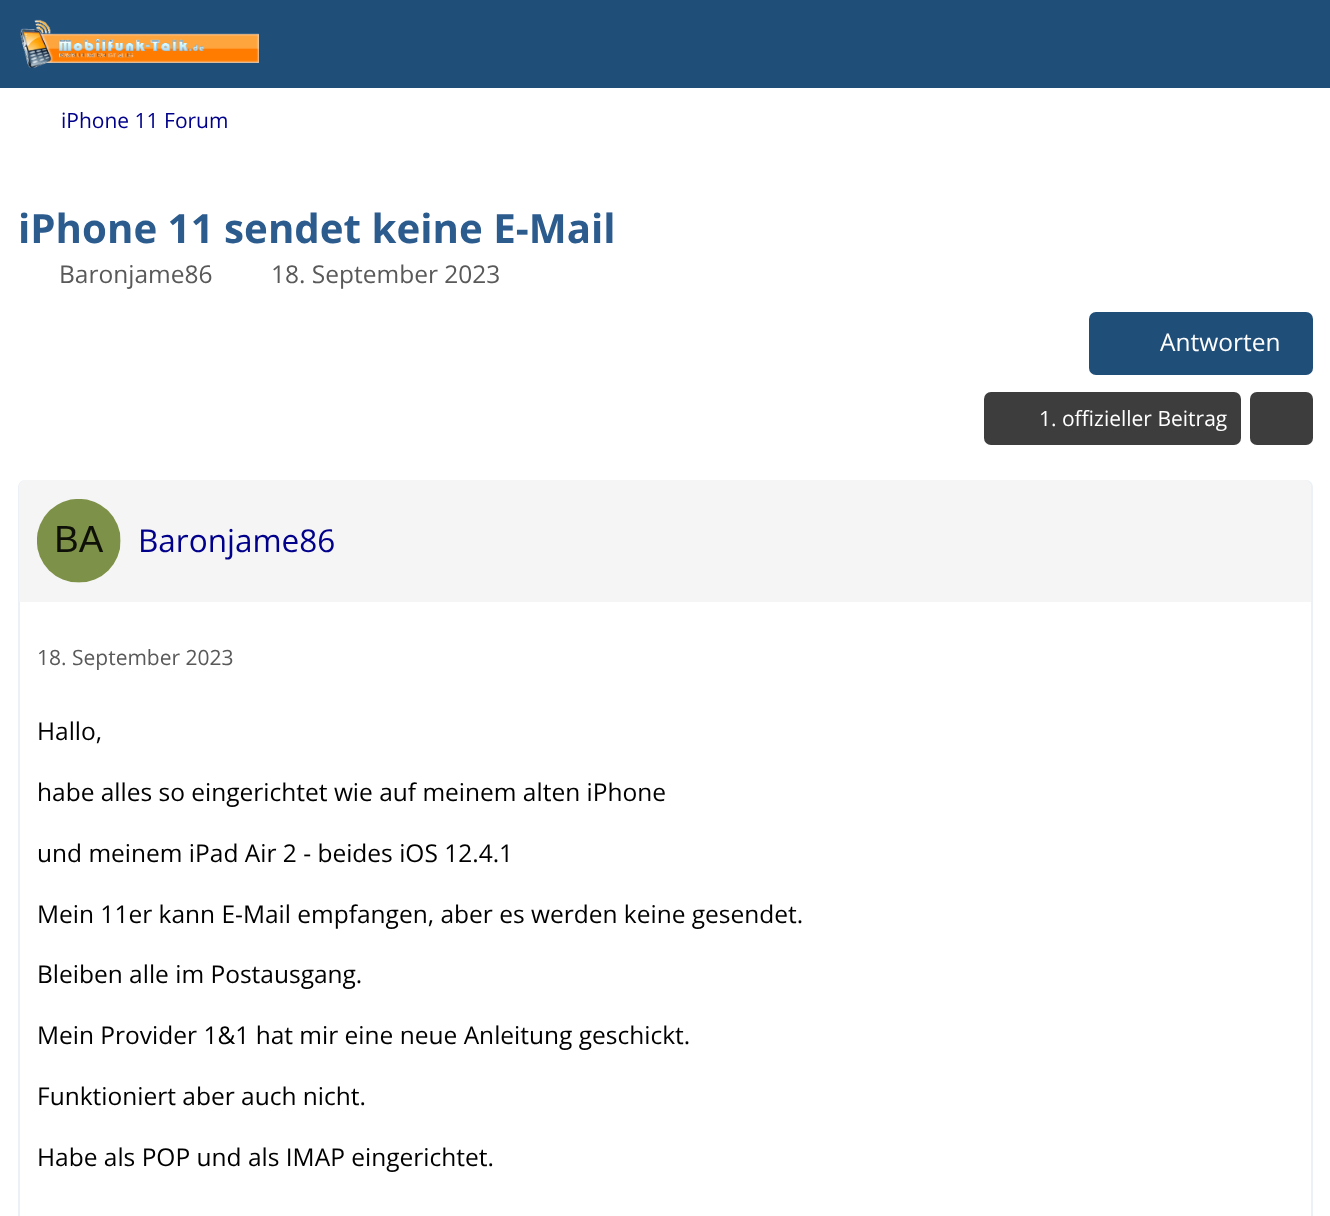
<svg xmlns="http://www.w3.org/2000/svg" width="1330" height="1216">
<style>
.a{font:21px Open Sans;fill:#00008b}
.b{font:bold 40.25px Open Sans;fill:#2c5b8e}
.c{font:24.5px Open Sans;fill:#595959}
.d{font:24.5px Open Sans;fill:#fff}
.e{font:21px Open Sans;fill:#fff}
.f{font:31.5px Open Sans;fill:#00008b}
.g{font:21px Open Sans;fill:#595959}
.h{font:24.5px Open Sans;fill:#000}
</style>
<rect width="100%" height="100%" fill="#fff"/>
<path fill="#1f4e79" d="M0 0h1330v88H0z"/>
<image href="1.png" x="20" y="19" width="239" height="49"/>
<rect fill="#1f4e79" x="1089" y="312" width="224" height="63" rx="7"/>
<rect fill="#3d3d3d" x="984" y="392" width="257" height="53" rx="7"/>
<rect fill="#3d3d3d" x="1250" y="392" width="63" height="53" rx="7"/>
<rect fill="none" stroke="#ecf1f7" stroke-width="2" x="19" y="481" width="1293" height="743" rx="6"/>
<path fill="#f5f5f5" d="M26 480h1278c4 0 7 3 7 7v115h-1292v-115c0-4 3-7 7-7z"/>
<circle fill="#fff" cx="79" cy="541" r="42"/>
<image href="2.png" x="37" y="499" width="84" height="84"/>
<text class="a" x="61" y="128">iPhone 11 Forum</text>
<text class="b" x="18" y="243">iPhone 11 sendet keine E-Mail</text>
<text class="c" x="59" y="283">Baronjame86</text>
<text class="c" x="271" y="283">18. September 2023</text>
<text class="d" x="1160" y="351">Antworten</text>
<text class="e" x="1039" y="426">1. offizieller Beitrag</text>
<text class="f" x="138" y="552">Baronjame86</text>
<text class="g" x="37" y="665">18. September 2023</text>
<text class="h" x="37" y="740">Hallo,</text>
<text class="h" x="37" y="801">habe alles so eingerichtet wie auf meinem alten iPhone</text>
<text class="h" x="37" y="862">und meinem iPad Air 2 - beides iOS 12.4.1</text>
<text class="h" x="37" y="923">Mein 11er kann E-Mail empfangen, aber es werden keine gesendet.</text>
<text class="h" x="37" y="983">Bleiben alle im Postausgang.</text>
<text class="h" x="37" y="1044">Mein Provider 1&amp;1 hat mir eine neue Anleitung geschickt.</text>
<text class="h" x="37" y="1105">Funktioniert aber auch nicht.</text>
<text class="h" x="37" y="1166">Habe als POP und als IMAP eingerichtet.</text>
</svg>
